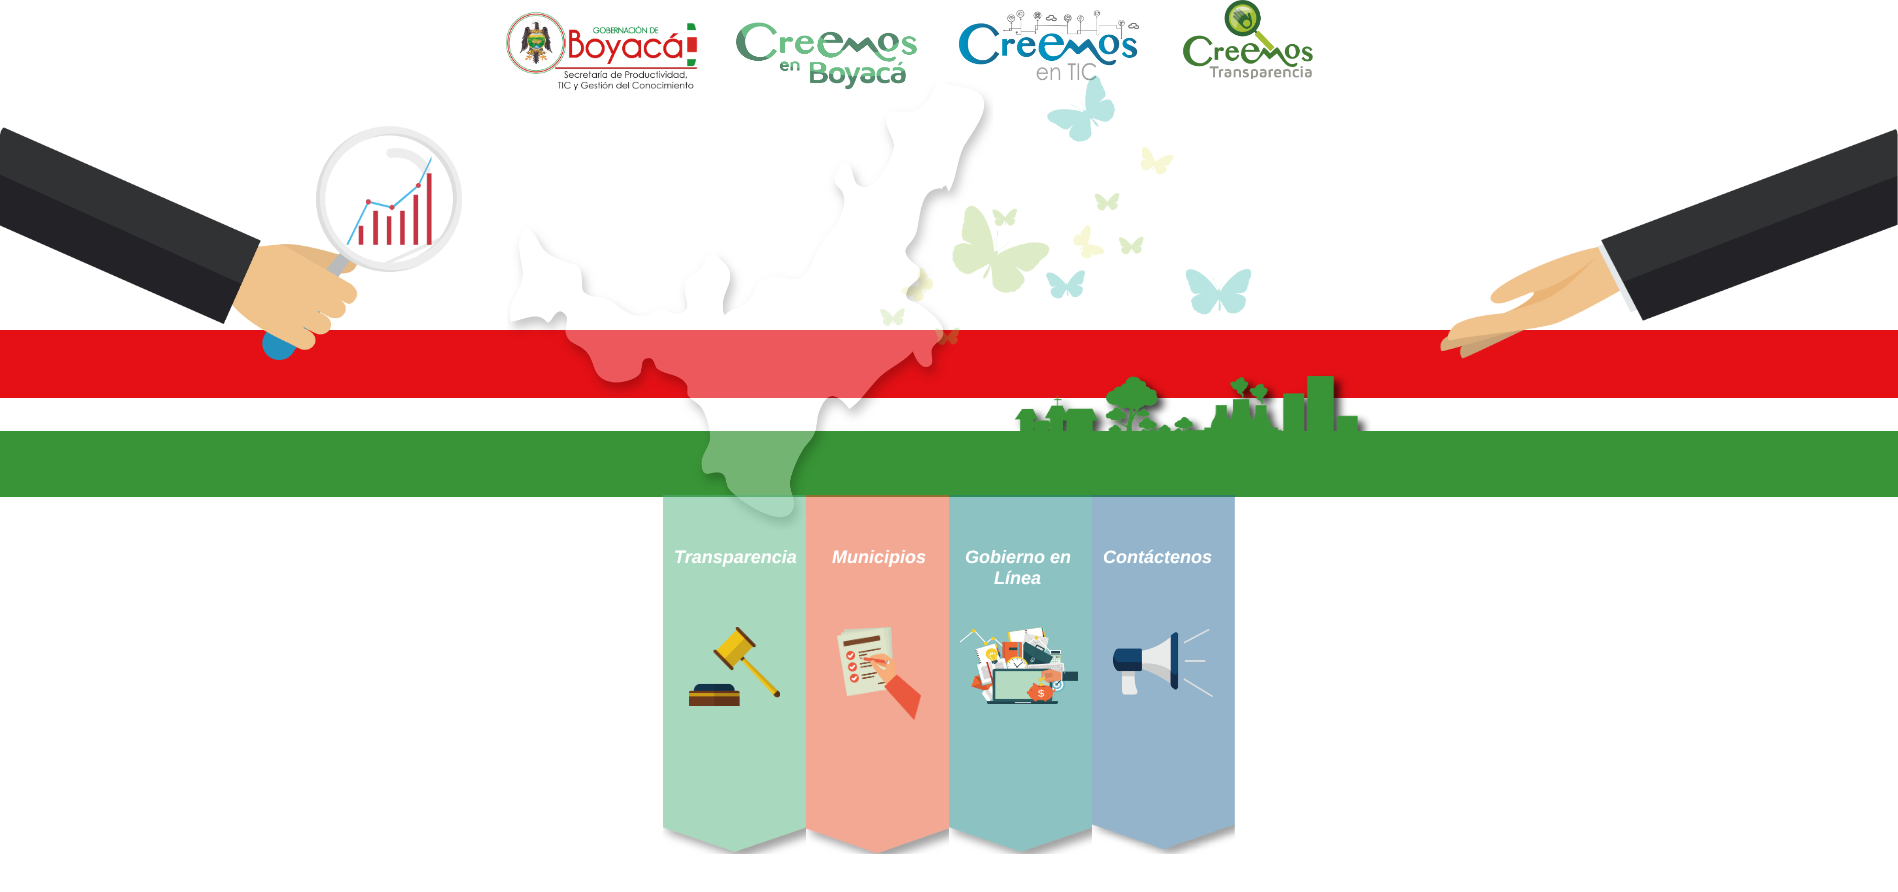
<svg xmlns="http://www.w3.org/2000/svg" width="1898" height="892">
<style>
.a{font:italic bold 18px Liberation Sans;fill:#fff}
</style>
<rect width="100%" height="100%" fill="#fff"/>
<image href="1.png" x="506" y="12" width="192" height="79"/>
<image href="2.png" x="736" y="22" width="181" height="68"/>
<image href="3.png" x="959" y="10" width="180" height="71"/>
<image href="4.png" x="1183" y="0" width="130" height="79"/>
<path fill="#e41015" d="M0 330h1898v68H0z"/>
<image href="5.png" x="0" y="126" width="462" height="234"/>
<image href="7.png" x="880" y="75" width="372" height="270"/>
<path fill="#389436" d="M0 431h1898v66H0z"/>
<image href="6.png" x="507" y="82" width="486" height="448"/>
<image href="8.png" x="1440" y="129" width="458" height="230"/>
<image href="9.png" x="1014" y="374" width="357" height="57"/>
<image href="10.png" x="663" y="495" width="143" height="359"/>
<image href="11.png" x="806" y="495" width="143" height="359"/>
<image href="12.png" x="949" y="495" width="143" height="359"/>
<image href="13.png" x="1092" y="495" width="143" height="359"/>
<image href="14.png" x="689" y="627" width="91" height="79"/>
<image href="15.png" x="837" y="627" width="84" height="93"/>
<image href="16.png" x="960" y="627" width="118" height="77"/>
<image href="17.png" x="1113" y="629" width="100" height="68"/>
<text class="a" x="674" y="563">Transparencia</text>
<text class="a" x="832" y="563">Municipios</text>
<text class="a" x="965" y="563">Gobierno en</text>
<text class="a" x="994" y="584">Línea</text>
<text class="a" x="1103" y="563">Contáctenos</text>
</svg>
